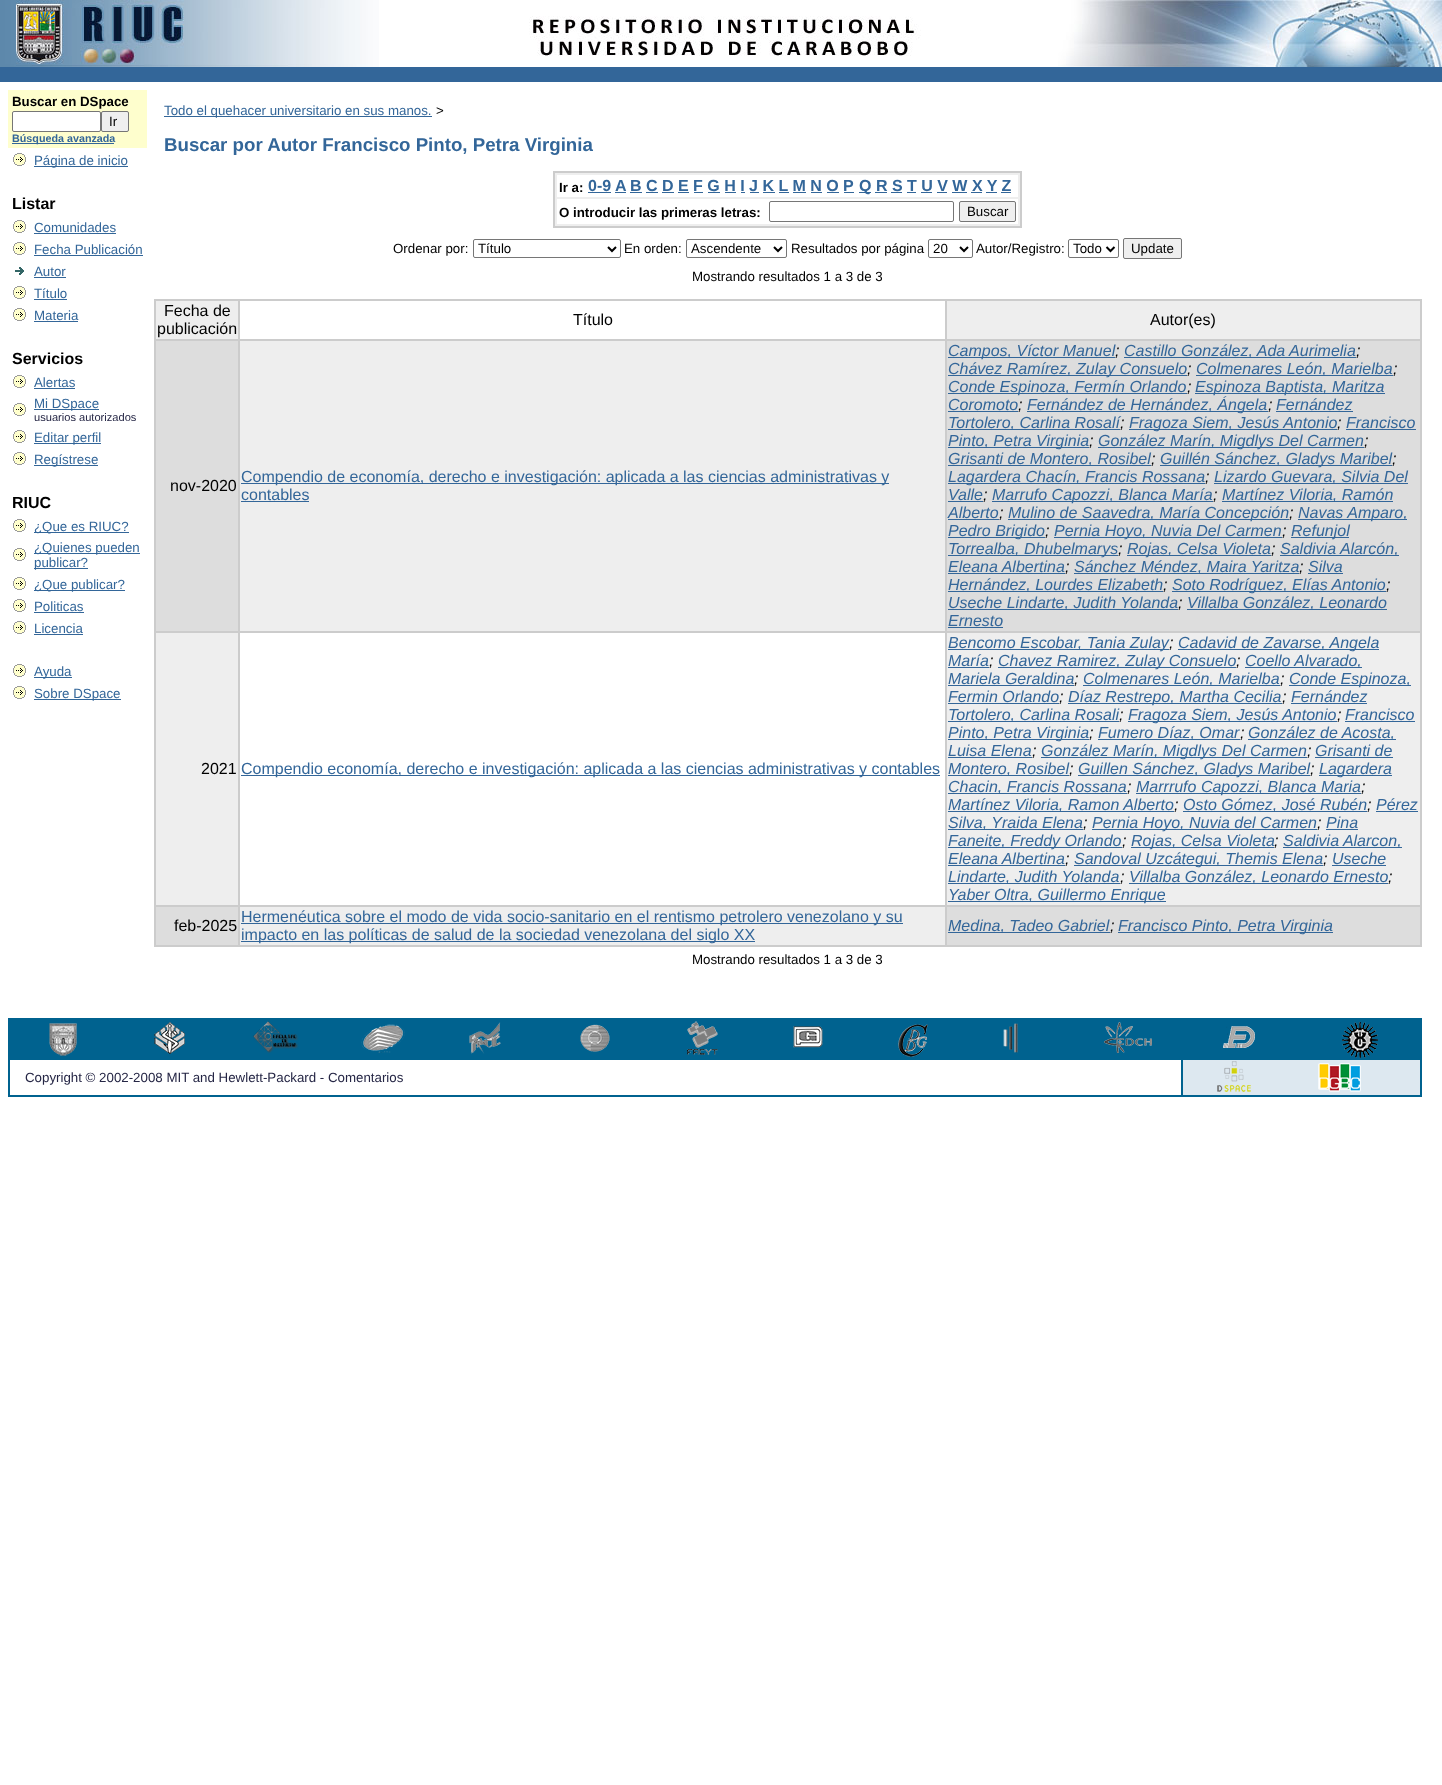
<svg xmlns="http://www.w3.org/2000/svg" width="1442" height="1785">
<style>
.a{font:bold 13.3px Liberation Sans;fill:#000}
.b{font:13.3px Liberation Sans;fill:#000}
.c{font:bold 10.75px Liberation Sans;fill:#369}
.d{font:13.3px Liberation Sans;fill:#369}
.e{font:bold 16px Liberation Sans;fill:#000}
.f{font:11.1px Liberation Sans;fill:#252645}
.g{font:bold 18.7px Liberation Sans;fill:#369}
.h{font:bold 16px Liberation Sans;fill:#369}
.i{font:16px Liberation Sans;fill:#000}
.j{font:16px Liberation Sans;fill:#369}
.k{font:italic 16px Liberation Sans;fill:#369}
.l{font:italic 16px Liberation Sans;fill:#000}
.m{font:13.3px Liberation Sans;fill:#252645}
</style>
<rect width="100%" height="100%" fill="#fff"/>
<image href="1.png" x="0" y="0" width="379" height="67"/>
<image href="2.png" x="529" y="16" width="392" height="40"/>
<image href="3.png" x="1058" y="0" width="384" height="67"/>
<path fill="#369" d="M0 67h1442v15H0z"/>
<path fill="#fefecd" d="M8 90h139v58H8z"/>
<rect fill="#fff" stroke="#767676" x="12.5" y="111.5" width="88" height="20" rx="1.5"/>
<rect fill="#efefef" stroke="#767676" x="101.5" y="111.5" width="27" height="20" rx="1.5"/>
<path fill="#369" d="M12 143h102v1H12z"/>
<image href="4.png" x="13" y="153" width="13" height="13"/>
<path fill="#369" d="M34 166h94v1H34z"/>
<image href="4.png" x="13" y="220" width="13" height="13"/>
<path fill="#369" d="M34 233h82v1H34z"/>
<image href="4.png" x="13" y="242" width="13" height="13"/>
<path fill="#369" d="M34 255h109v1H34z"/>
<image href="5.png" x="15" y="267" width="9" height="8"/>
<path fill="#369" d="M34 277h32v1H34z"/>
<image href="4.png" x="13" y="286" width="13" height="13"/>
<path fill="#369" d="M34 299h33v1H34z"/>
<image href="4.png" x="13" y="308" width="13" height="13"/>
<path fill="#369" d="M34 321h44v1H34z"/>
<image href="4.png" x="13" y="375" width="13" height="13"/>
<path fill="#369" d="M34 388h41v1H34z"/>
<image href="4.png" x="13" y="403" width="13" height="13"/>
<path fill="#369" d="M34 409h65v1H34z"/>
<image href="4.png" x="13" y="430" width="13" height="13"/>
<path fill="#369" d="M34 443h67v1H34z"/>
<image href="4.png" x="13" y="452" width="13" height="13"/>
<path fill="#369" d="M34 465h64v1H34z"/>
<image href="4.png" x="13" y="519" width="13" height="13"/>
<path fill="#369" d="M34 532h95v1H34z"/>
<image href="4.png" x="13" y="548" width="13" height="13"/>
<path fill="#369" d="M34 553h106v1H34z"/>
<path fill="#369" d="M34 568h54v1H34z"/>
<image href="4.png" x="13" y="577" width="13" height="13"/>
<path fill="#369" d="M34 590h91v1H34z"/>
<image href="4.png" x="13" y="599" width="13" height="13"/>
<path fill="#369" d="M34 612h50v1H34z"/>
<image href="4.png" x="13" y="621" width="13" height="13"/>
<path fill="#369" d="M34 634h49v1H34z"/>
<image href="4.png" x="13" y="664" width="13" height="13"/>
<path fill="#369" d="M34 677h38v1H34z"/>
<image href="4.png" x="13" y="686" width="13" height="13"/>
<path fill="#369" d="M34 699h87v1H34z"/>
<path fill="#369" d="M164 116h268v1H164z"/>
<path fill="#ccc" d="M553 171h469v57H553z"/>
<path fill="#eee" d="M555 173h465v53H555z"/>
<path fill="#fff" d="M557 175h461v22H557z"/>
<path fill="#369" d="M588 192h23v1H588z"/>
<path fill="#369" d="M615 192h11v1H615z"/>
<path fill="#369" d="M630 192h12v1H630z"/>
<path fill="#369" d="M859 192h12v1H859z"/>
<path fill="#369" d="M646 192h12v1H646z"/>
<path fill="#369" d="M662 192h12v1H662z"/>
<path fill="#369" d="M678 192h11v1H678z"/>
<path fill="#369" d="M694 192h9v1H694z"/>
<path fill="#369" d="M708 192h12v1H708z"/>
<path fill="#369" d="M725 192h11v1H725z"/>
<path fill="#369" d="M741 192h4v1H741z"/>
<path fill="#369" d="M750 192h9v1H750z"/>
<path fill="#369" d="M763 192h12v1H763z"/>
<path fill="#369" d="M779 192h10v1H779z"/>
<path fill="#369" d="M793 192h13v1H793z"/>
<path fill="#369" d="M811 192h11v1H811z"/>
<path fill="#369" d="M827 192h12v1H827z"/>
<path fill="#369" d="M844 192h10v1H844z"/>
<path fill="#369" d="M875 192h12v1H875z"/>
<path fill="#369" d="M891 192h11v1H891z"/>
<path fill="#369" d="M907 192h9v1H907z"/>
<path fill="#369" d="M921 192h11v1H921z"/>
<path fill="#369" d="M937 192h10v1H937z"/>
<path fill="#369" d="M952 192h15v1H952z"/>
<path fill="#369" d="M971 192h11v1H971z"/>
<path fill="#369" d="M986 192h11v1H986z"/>
<path fill="#369" d="M1001 192h10v1H1001z"/>
<path fill="#fff" d="M557 199h461v25H557z"/>
<rect fill="none" stroke="#767676" x="769.5" y="201.5" width="184" height="20" rx="1.5"/>
<rect fill="#efefef" stroke="#767676" x="959.5" y="201.5" width="56" height="20" rx="1.5"/>
<rect fill="none" stroke="#767676" x="473.5" y="239.5" width="147" height="18" rx="1.5"/>
<path fill="none" stroke="#000" stroke-width="2" d="M608 247l4 4l4-4"/>
<rect fill="none" stroke="#767676" x="686.5" y="239.5" width="100" height="18" rx="1.5"/>
<path fill="none" stroke="#000" stroke-width="2" d="M774 247l4 4l4-4"/>
<rect fill="none" stroke="#767676" x="928.5" y="239.5" width="44" height="18" rx="1.5"/>
<path fill="none" stroke="#000" stroke-width="2" d="M960 247l4 4l4-4"/>
<rect fill="none" stroke="#767676" x="1068.5" y="239.5" width="50" height="18" rx="1.5"/>
<path fill="none" stroke="#000" stroke-width="2" d="M1106.5 247l4 4l4-4"/>
<rect fill="#efefef" stroke="#767676" x="1123.5" y="238.5" width="58" height="20" rx="1.5"/>
<path fill="#ccc" d="M154 299h1268v648H154z"/>
<path fill="#eee" d="M156 301h82v38H156z"/>
<path fill="#fff" d="M240 301h705v38H240z"/>
<path fill="#eee" d="M947 301h473v38H947z"/>
<path fill="#ddd" d="M156 341h82v290H156z"/>
<path fill="#eee" d="M240 341h705v290H240z"/>
<path fill="#369" d="M241 483h648v1H241z"/>
<path fill="#369" d="M241 501h68v1H241z"/>
<path fill="#ddd" d="M947 341h473v290H947z"/>
<path fill="#369" d="M948 357h167v1H948z"/>
<path fill="#369" d="M1124 357h232v1H1124z"/>
<path fill="#369" d="M948 375h239v1H948z"/>
<path fill="#369" d="M1196 375h197v1H1196z"/>
<path fill="#369" d="M948 393h239v1H948z"/>
<path fill="#369" d="M1195 393h190v1H1195z"/>
<path fill="#369" d="M948 411h70v1H948z"/>
<path fill="#369" d="M1027 411h241v1H1027z"/>
<path fill="#369" d="M1276 411h77v1H1276z"/>
<path fill="#369" d="M948 429h172v1H948z"/>
<path fill="#369" d="M1129 429h208v1H1129z"/>
<path fill="#369" d="M1346 429h70v1H1346z"/>
<path fill="#369" d="M948 447h141v1H948z"/>
<path fill="#369" d="M1098 447h266v1H1098z"/>
<path fill="#369" d="M948 465h203v1H948z"/>
<path fill="#369" d="M1160 465h232v1H1160z"/>
<path fill="#369" d="M948 483h257v1H948z"/>
<path fill="#369" d="M1214 483h194v1H1214z"/>
<path fill="#369" d="M948 501h35v1H948z"/>
<path fill="#369" d="M992 501h221v1H992z"/>
<path fill="#369" d="M1222 501h171v1H1222z"/>
<path fill="#369" d="M948 519h51v1H948z"/>
<path fill="#369" d="M1008 519h281v1H1008z"/>
<path fill="#369" d="M1298 519h109v1H1298z"/>
<path fill="#369" d="M948 537h97v1H948z"/>
<path fill="#369" d="M1054 537h228v1H1054z"/>
<path fill="#369" d="M1291 537h58v1H1291z"/>
<path fill="#369" d="M948 555h170v1H948z"/>
<path fill="#369" d="M1127 555h144v1H1127z"/>
<path fill="#369" d="M1280 555h119v1H1280z"/>
<path fill="#369" d="M948 573h117v1H948z"/>
<path fill="#369" d="M1074 573h225v1H1074z"/>
<path fill="#369" d="M1308 573h35v1H1308z"/>
<path fill="#369" d="M948 591h215v1H948z"/>
<path fill="#369" d="M1172 591h214v1H1172z"/>
<path fill="#369" d="M948 609h230v1H948z"/>
<path fill="#369" d="M1187 609h200v1H1187z"/>
<path fill="#369" d="M948 627h55v1H948z"/>
<path fill="#eee" d="M156 633h82v272H156z"/>
<path fill="#fff" d="M240 633h705v272H240z"/>
<path fill="#369" d="M241 775h699v1H241z"/>
<path fill="#eee" d="M947 633h473v272H947z"/>
<path fill="#369" d="M948 649h221v1H948z"/>
<path fill="#369" d="M1178 649h201v1H1178z"/>
<path fill="#369" d="M948 667h41v1H948z"/>
<path fill="#369" d="M998 667h238v1H998z"/>
<path fill="#369" d="M1245 667h117v1H1245z"/>
<path fill="#369" d="M948 685h126v1H948z"/>
<path fill="#369" d="M1083 685h197v1H1083z"/>
<path fill="#369" d="M1289 685h122v1H1289z"/>
<path fill="#369" d="M948 703h111v1H948z"/>
<path fill="#369" d="M1068 703h214v1H1068z"/>
<path fill="#369" d="M1291 703h76v1H1291z"/>
<path fill="#369" d="M948 721h171v1H948z"/>
<path fill="#369" d="M1128 721h209v1H1128z"/>
<path fill="#369" d="M1345 721h70v1H1345z"/>
<path fill="#369" d="M948 739h141v1H948z"/>
<path fill="#369" d="M1098 739h142v1H1098z"/>
<path fill="#369" d="M1248 739h148v1H1248z"/>
<path fill="#369" d="M948 757h84v1H948z"/>
<path fill="#369" d="M1041 757h266v1H1041z"/>
<path fill="#369" d="M1315 757h78v1H1315z"/>
<path fill="#369" d="M948 775h121v1H948z"/>
<path fill="#369" d="M1078 775h232v1H1078z"/>
<path fill="#369" d="M1319 775h73v1H1319z"/>
<path fill="#369" d="M948 793h179v1H948z"/>
<path fill="#369" d="M1136 793h225v1H1136z"/>
<path fill="#369" d="M948 811h226v1H948z"/>
<path fill="#369" d="M1183 811h184v1H1183z"/>
<path fill="#369" d="M1376 811h42v1H1376z"/>
<path fill="#369" d="M948 829h135v1H948z"/>
<path fill="#369" d="M1092 829h225v1H1092z"/>
<path fill="#369" d="M1326 829h32v1H1326z"/>
<path fill="#369" d="M948 847h174v1H948z"/>
<path fill="#369" d="M1131 847h143v1H1131z"/>
<path fill="#369" d="M1283 847h119v1H1283z"/>
<path fill="#369" d="M948 865h117v1H948z"/>
<path fill="#369" d="M1074 865h249v1H1074z"/>
<path fill="#369" d="M1332 865h54v1H1332z"/>
<path fill="#369" d="M948 883h172v1H948z"/>
<path fill="#369" d="M1129 883h259v1H1129z"/>
<path fill="#369" d="M948 901h218v1H948z"/>
<path fill="#ddd" d="M156 907h82v38H156z"/>
<path fill="#eee" d="M240 907h705v38H240z"/>
<path fill="#369" d="M241 923h662v1H241z"/>
<path fill="#369" d="M241 941h514v1H241z"/>
<path fill="#ddd" d="M947 907h473v38H947z"/>
<path fill="#369" d="M948 932h162v1H948z"/>
<path fill="#369" d="M1118 932h215v1H1118z"/>
<path fill="#00628f" d="M8 1018h1414v79H8z"/>
<image href="6.png" x="49" y="1023" width="28" height="33"/>
<image href="7.png" x="154" y="1022" width="31" height="32"/>
<image href="8.png" x="253" y="1021" width="46" height="32"/>
<image href="9.png" x="361" y="1024" width="44" height="29"/>
<image href="10.png" x="469" y="1022" width="32" height="32"/>
<image href="11.png" x="580" y="1024" width="30" height="28"/>
<image href="12.png" x="687" y="1021" width="31" height="34"/>
<image href="13.png" x="793" y="1026" width="30" height="22"/>
<image href="14.png" x="898" y="1024" width="30" height="33"/>
<image href="15.png" x="1003" y="1023" width="15" height="30"/>
<image href="16.png" x="1104" y="1022" width="48" height="31"/>
<image href="17.png" x="1223" y="1026" width="32" height="22"/>
<image href="18.png" x="1342" y="1022" width="36" height="36"/>
<path fill="#fff" d="M10 1060h1171v35H10z"/>
<path fill="#dde8f0" d="M1183 1060h237v35H1183z"/>
<image href="19.png" x="1217" y="1061" width="34" height="31"/>
<image href="20.png" x="1318" y="1063" width="43" height="29"/>
<text class="a" x="12" y="106">Buscar en DSpace</text>
<text class="b" x="109" y="126">Ir</text>
<text class="c" x="12" y="142">Búsqueda avanzada</text>
<text class="d" x="34" y="165">Página de inicio</text>
<text class="e" x="12" y="209">Listar</text>
<text class="d" x="34" y="232">Comunidades</text>
<text class="d" x="34" y="254">Fecha Publicación</text>
<text class="d" x="34" y="276">Autor</text>
<text class="d" x="34" y="298">Título</text>
<text class="d" x="34" y="320">Materia</text>
<text class="e" x="12" y="364">Servicios</text>
<text class="d" x="34" y="387">Alertas</text>
<text class="d" x="34" y="408">Mi DSpace</text>
<text class="f" x="34" y="421">usuarios autorizados</text>
<text class="d" x="34" y="442">Editar perfil</text>
<text class="d" x="34" y="464">Regístrese</text>
<text class="e" x="12" y="508">RIUC</text>
<text class="d" x="34" y="531">¿Que es RIUC?</text>
<text class="d" x="34" y="552">¿Quienes pueden</text>
<text class="d" x="34" y="567">publicar?</text>
<text class="d" x="34" y="589">¿Que publicar?</text>
<text class="d" x="34" y="611">Politicas</text>
<text class="d" x="34" y="633">Licencia</text>
<text class="d" x="34" y="676">Ayuda</text>
<text class="d" x="34" y="698">Sobre DSpace</text>
<text class="d" x="164" y="115">Todo el quehacer universitario en sus manos.</text>
<text class="b" x="436" y="115">&gt;</text>
<text class="g" x="164" y="151">Buscar por Autor Francisco Pinto, Petra Virginia</text>
<text class="a" x="559" y="192">Ir a:</text>
<text class="h" x="588" y="191">0-9</text>
<text class="h" x="615" y="191">A</text>
<text class="h" x="630" y="191">B C D E F G H I J K L M N O P</text>
<text class="h" x="859" y="191">Q R S T U V W X Y Z</text>
<text class="a" x="559" y="217">O introducir las primeras letras:</text>
<text class="b" x="967" y="216">Buscar</text>
<text class="b" x="393" y="253">Ordenar por:</text>
<text class="b" x="478" y="253">Título</text>
<text class="b" x="624" y="253">En orden:</text>
<text class="b" x="691" y="253">Ascendente</text>
<text class="b" x="791" y="253">Resultados por página</text>
<text class="b" x="933" y="253">20</text>
<text class="b" x="976" y="253">Autor/Registro:</text>
<text class="b" x="1073" y="253">Todo</text>
<text class="b" x="1131" y="253">Update</text>
<text class="b" x="692" y="281">Mostrando resultados 1 a 3 de 3</text>
<text class="i" x="164" y="316">Fecha de</text>
<text class="i" x="157" y="334">publicación</text>
<text class="i" x="573" y="325">Título</text>
<text class="i" x="1150" y="325">Autor(es)</text>
<text class="i" x="170" y="491">nov-2020</text>
<text class="j" x="241" y="482">Compendio de economía, derecho e investigación: aplicada a las ciencias administrativas y</text>
<text class="j" x="241" y="500">contables</text>
<text class="k" x="948" y="356">Campos, Víctor Manuel</text>
<text class="l" x="1115" y="356">;</text>
<text class="k" x="1124" y="356">Castillo González, Ada Aurimelia</text>
<text class="l" x="1356" y="356">;</text>
<text class="k" x="948" y="374">Chávez Ramírez, Zulay Consuelo</text>
<text class="l" x="1187" y="374">;</text>
<text class="k" x="1196" y="374">Colmenares León, Marielba</text>
<text class="l" x="1393" y="374">;</text>
<text class="k" x="948" y="392">Conde Espinoza, Fermín Orlando</text>
<text class="l" x="1187" y="392">;</text>
<text class="k" x="1195" y="392">Espinoza Baptista, Maritza</text>
<text class="k" x="948" y="410">Coromoto</text>
<text class="l" x="1018" y="410">;</text>
<text class="k" x="1027" y="410">Fernández de Hernández, Ángela</text>
<text class="l" x="1268" y="410">;</text>
<text class="k" x="1276" y="410">Fernández</text>
<text class="k" x="948" y="428">Tortolero, Carlina Rosalí</text>
<text class="l" x="1120" y="428">;</text>
<text class="k" x="1129" y="428">Fragoza Siem, Jesús Antonio</text>
<text class="l" x="1337" y="428">;</text>
<text class="k" x="1346" y="428">Francisco</text>
<text class="k" x="948" y="446">Pinto, Petra Virginia</text>
<text class="l" x="1089" y="446">;</text>
<text class="k" x="1098" y="446">González Marín, Migdlys Del Carmen</text>
<text class="l" x="1364" y="446">;</text>
<text class="k" x="948" y="464">Grisanti de Montero, Rosibel</text>
<text class="l" x="1151" y="464">;</text>
<text class="k" x="1160" y="464">Guillén Sánchez, Gladys Maribel</text>
<text class="l" x="1392" y="464">;</text>
<text class="k" x="948" y="482">Lagardera Chacín, Francis Rossana</text>
<text class="l" x="1205" y="482">;</text>
<text class="k" x="1214" y="482">Lizardo Guevara, Silvia Del</text>
<text class="k" x="948" y="500">Valle</text>
<text class="l" x="983" y="500">;</text>
<text class="k" x="992" y="500">Marrufo Capozzi, Blanca María</text>
<text class="l" x="1213" y="500">;</text>
<text class="k" x="1222" y="500">Martínez Viloria, Ramón</text>
<text class="k" x="948" y="518">Alberto</text>
<text class="l" x="999" y="518">;</text>
<text class="k" x="1008" y="518">Mulino de Saavedra, María Concepción</text>
<text class="l" x="1289" y="518">;</text>
<text class="k" x="1298" y="518">Navas Amparo,</text>
<text class="k" x="948" y="536">Pedro Brigido</text>
<text class="l" x="1045" y="536">;</text>
<text class="k" x="1054" y="536">Pernia Hoyo, Nuvia Del Carmen</text>
<text class="l" x="1282" y="536">;</text>
<text class="k" x="1291" y="536">Refunjol</text>
<text class="k" x="948" y="554">Torrealba, Dhubelmarys</text>
<text class="l" x="1118" y="554">;</text>
<text class="k" x="1127" y="554">Rojas, Celsa Violeta</text>
<text class="l" x="1271" y="554">;</text>
<text class="k" x="1280" y="554">Saldivia Alarcón,</text>
<text class="k" x="948" y="572">Eleana Albertina</text>
<text class="l" x="1065" y="572">;</text>
<text class="k" x="1074" y="572">Sánchez Méndez, Maira Yaritza</text>
<text class="l" x="1299" y="572">;</text>
<text class="k" x="1308" y="572">Silva</text>
<text class="k" x="948" y="590">Hernández, Lourdes Elizabeth</text>
<text class="l" x="1163" y="590">;</text>
<text class="k" x="1172" y="590">Soto Rodríguez, Elías Antonio</text>
<text class="l" x="1386" y="590">;</text>
<text class="k" x="948" y="608">Useche Lindarte, Judith Yolanda</text>
<text class="l" x="1178" y="608">;</text>
<text class="k" x="1187" y="608">Villalba González, Leonardo</text>
<text class="k" x="948" y="626">Ernesto</text>
<text class="i" x="201" y="774">2021</text>
<text class="j" x="241" y="774">Compendio economía, derecho e investigación: aplicada a las ciencias administrativas y contables</text>
<text class="k" x="948" y="648">Bencomo Escobar, Tania Zulay</text>
<text class="l" x="1169" y="648">;</text>
<text class="k" x="1178" y="648">Cadavid de Zavarse, Angela</text>
<text class="k" x="948" y="666">María</text>
<text class="l" x="989" y="666">;</text>
<text class="k" x="998" y="666">Chavez Ramirez, Zulay Consuelo</text>
<text class="l" x="1236" y="666">;</text>
<text class="k" x="1245" y="666">Coello Alvarado,</text>
<text class="k" x="948" y="684">Mariela Geraldina</text>
<text class="l" x="1074" y="684">;</text>
<text class="k" x="1083" y="684">Colmenares León, Marielba</text>
<text class="l" x="1280" y="684">;</text>
<text class="k" x="1289" y="684">Conde Espinoza,</text>
<text class="k" x="948" y="702">Fermin Orlando</text>
<text class="l" x="1059" y="702">;</text>
<text class="k" x="1068" y="702">Díaz Restrepo, Martha Cecilia</text>
<text class="l" x="1282" y="702">;</text>
<text class="k" x="1291" y="702">Fernández</text>
<text class="k" x="948" y="720">Tortolero, Carlina Rosali</text>
<text class="l" x="1119" y="720">;</text>
<text class="k" x="1128" y="720">Fragoza Siem, Jesús Antonio</text>
<text class="l" x="1337" y="720">;</text>
<text class="k" x="1345" y="720">Francisco</text>
<text class="k" x="948" y="738">Pinto, Petra Virginia</text>
<text class="l" x="1089" y="738">;</text>
<text class="k" x="1098" y="738">Fumero Díaz, Omar</text>
<text class="l" x="1240" y="738">;</text>
<text class="k" x="1248" y="738">González de Acosta,</text>
<text class="k" x="948" y="756">Luisa Elena</text>
<text class="l" x="1032" y="756">;</text>
<text class="k" x="1041" y="756">González Marín, Migdlys Del Carmen</text>
<text class="l" x="1307" y="756">;</text>
<text class="k" x="1315" y="756">Grisanti de</text>
<text class="k" x="948" y="774">Montero, Rosibel</text>
<text class="l" x="1069" y="774">;</text>
<text class="k" x="1078" y="774">Guillen Sánchez, Gladys Maribel</text>
<text class="l" x="1310" y="774">;</text>
<text class="k" x="1319" y="774">Lagardera</text>
<text class="k" x="948" y="792">Chacin, Francis Rossana</text>
<text class="l" x="1127" y="792">;</text>
<text class="k" x="1136" y="792">Marrrufo Capozzi, Blanca Maria</text>
<text class="l" x="1361" y="792">;</text>
<text class="k" x="948" y="810">Martínez Viloria, Ramon Alberto</text>
<text class="l" x="1174" y="810">;</text>
<text class="k" x="1183" y="810">Osto Gómez, José Rubén</text>
<text class="l" x="1367" y="810">;</text>
<text class="k" x="1376" y="810">Pérez</text>
<text class="k" x="948" y="828">Silva, Yraida Elena</text>
<text class="l" x="1083" y="828">;</text>
<text class="k" x="1092" y="828">Pernia Hoyo, Nuvia del Carmen</text>
<text class="l" x="1317" y="828">;</text>
<text class="k" x="1326" y="828">Pina</text>
<text class="k" x="948" y="846">Faneite, Freddy Orlando</text>
<text class="l" x="1122" y="846">;</text>
<text class="k" x="1131" y="846">Rojas, Celsa Violeta</text>
<text class="l" x="1274" y="846">;</text>
<text class="k" x="1283" y="846">Saldivia Alarcon,</text>
<text class="k" x="948" y="864">Eleana Albertina</text>
<text class="l" x="1065" y="864">;</text>
<text class="k" x="1074" y="864">Sandoval Uzcátegui, Themis Elena</text>
<text class="l" x="1323" y="864">;</text>
<text class="k" x="1332" y="864">Useche</text>
<text class="k" x="948" y="882">Lindarte, Judith Yolanda</text>
<text class="l" x="1120" y="882">;</text>
<text class="k" x="1129" y="882">Villalba González, Leonardo Ernesto</text>
<text class="l" x="1388" y="882">;</text>
<text class="k" x="948" y="900">Yaber Oltra, Guillermo Enrique</text>
<text class="i" x="174" y="931">feb-2025</text>
<text class="j" x="241" y="922">Hermenéutica sobre el modo de vida socio-sanitario en el rentismo petrolero venezolano y su</text>
<text class="j" x="241" y="940">impacto en las políticas de salud de la sociedad venezolana del siglo XX</text>
<text class="k" x="948" y="931">Medina, Tadeo Gabriel</text>
<text class="l" x="1110" y="931">;</text>
<text class="k" x="1118" y="931">Francisco Pinto, Petra Virginia</text>
<text class="b" x="692" y="964">Mostrando resultados 1 a 3 de 3</text>
<text class="m" x="25" y="1082">Copyright © 2002-2008 MIT and Hewlett-Packard - Comentarios</text>
</svg>
